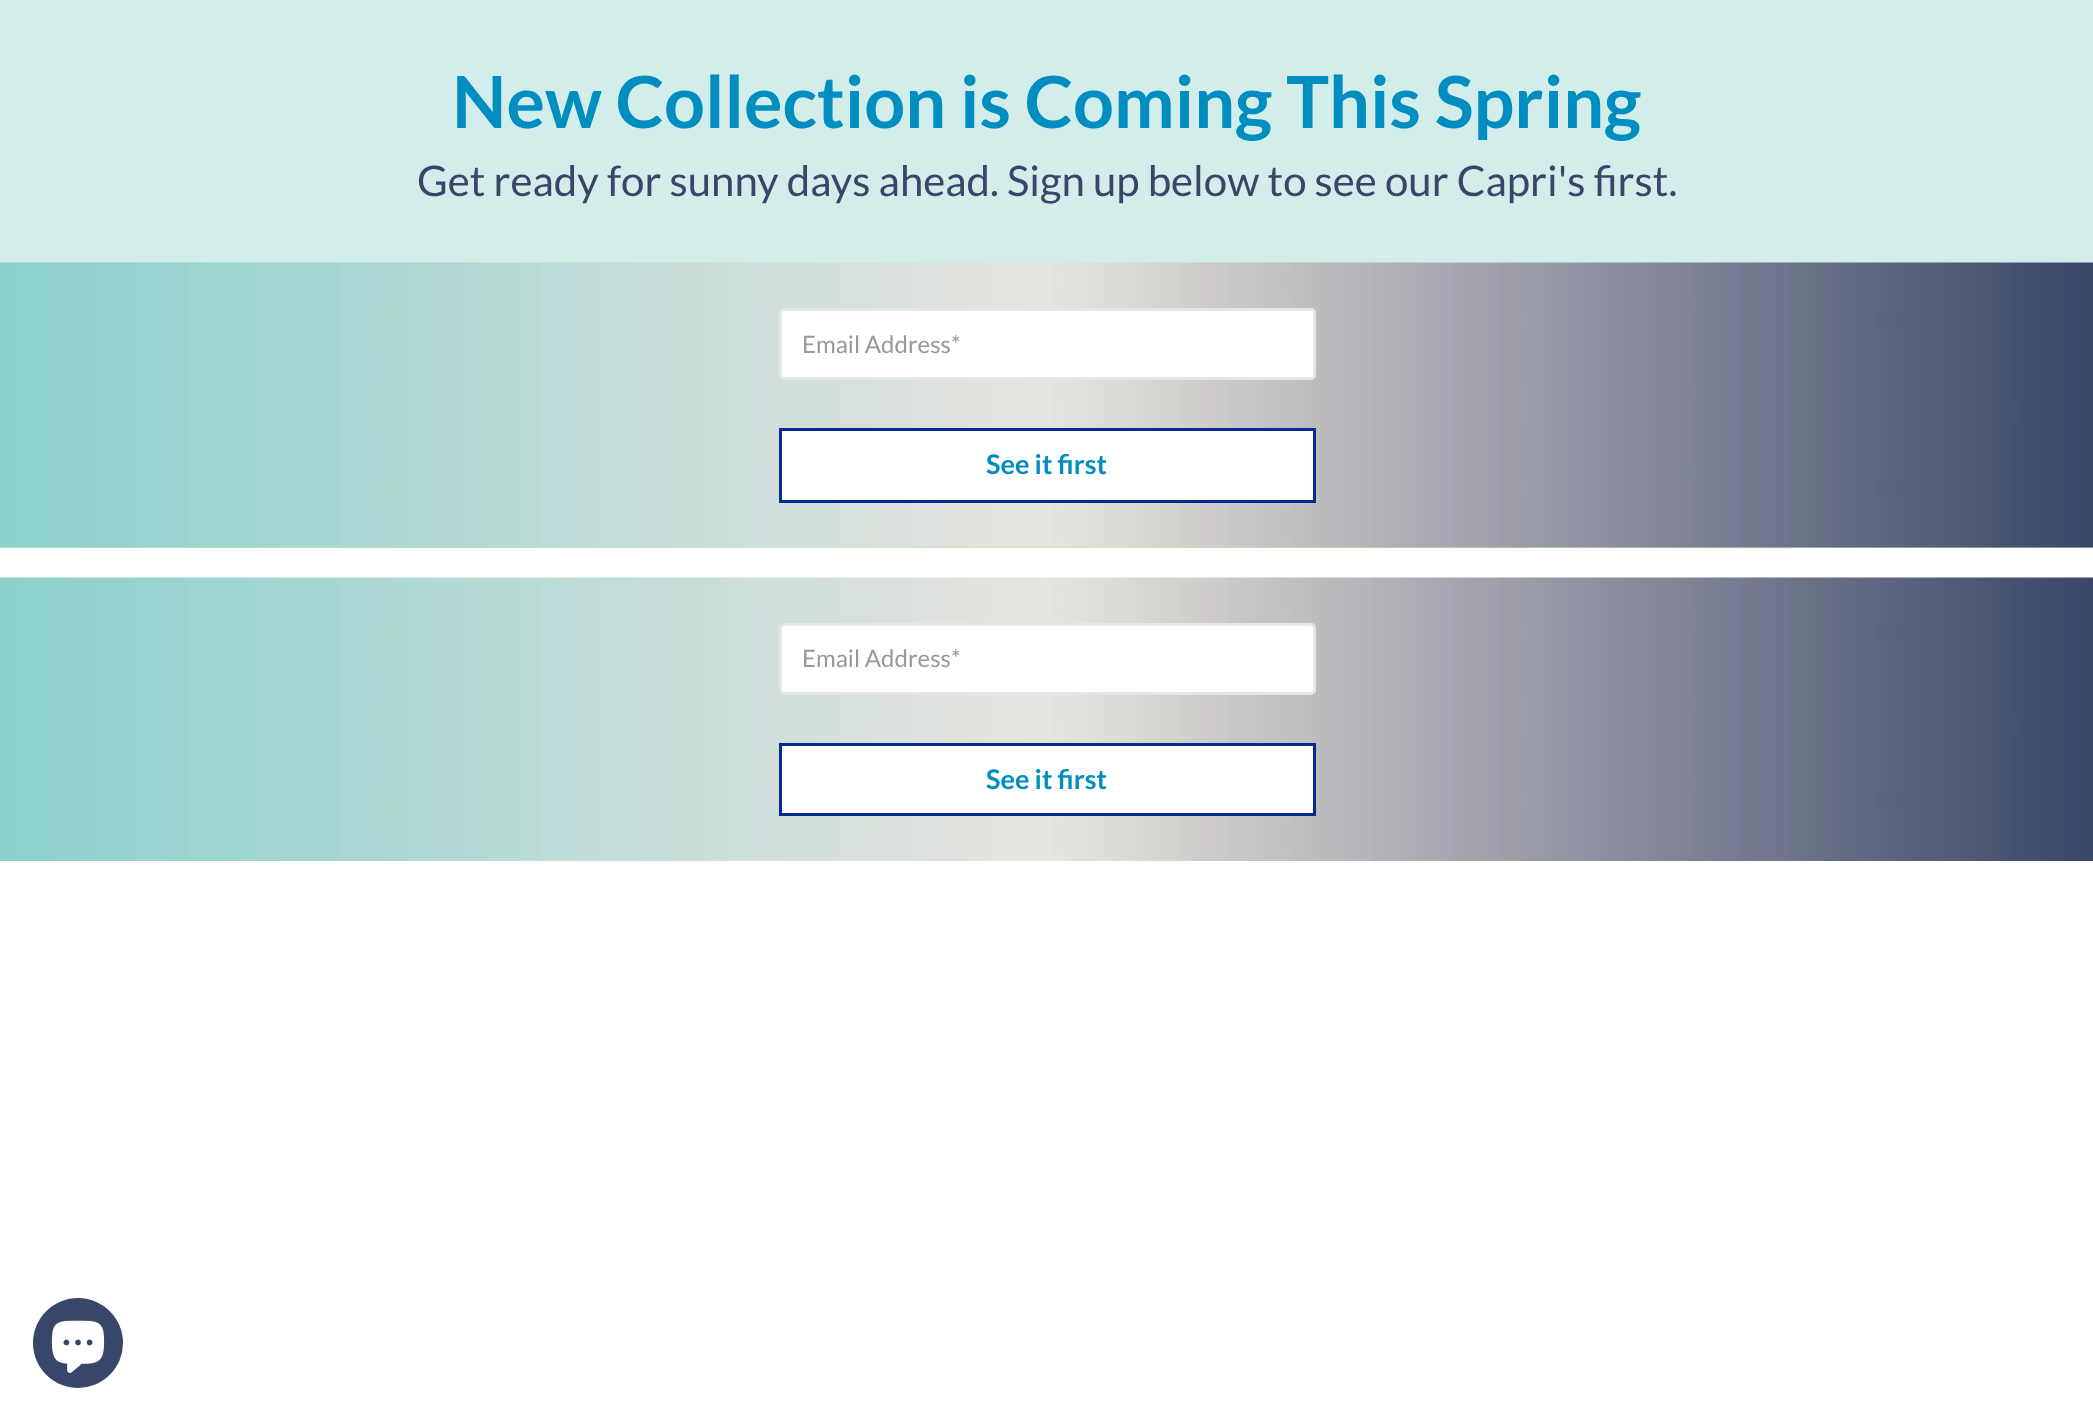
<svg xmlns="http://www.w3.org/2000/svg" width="2093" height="1419">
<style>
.a{font:bold 72px Lato;fill:#008ec1}
.b{font:42px Lato;fill:#384669}
.c{font:24px Lato;fill:#999}
.d{font:bold 27px Lato;fill:#008ec1}
</style>
<rect width="100%" height="100%" fill="#fff"/>
<path fill="#d3edea" d="M0 0h2093v263H0z"/>
<path fill="#beea98" d="M0 547h2093v1H0z"/>
<image href="1.png" x="0" y="262" width="2093" height="286"/>
<rect fill="#fff" stroke="#e6e6e6" stroke-width="3" x="780.5" y="309.5" width="534" height="69" rx="3.5"/>
<path fill="#fff" stroke="#072a8f" stroke-width="3" d="M780.5 429.5h534v72H780.5z"/>
<image href="2.png" x="0" y="577" width="2093" height="284"/>
<rect fill="#fff" stroke="#e6e6e6" stroke-width="3" x="780.5" y="624.5" width="534" height="69" rx="3.5"/>
<path fill="#fff" stroke="#072a8f" stroke-width="3" d="M780.5 744.5h534v70H780.5z"/>
<circle fill="#384669" cx="78" cy="1343" r="45"/>
<image href="3.png" x="51" y="1320" width="54" height="53"/>
<text class="a" x="452" y="128">New Collection is Coming This Spring</text>
<text class="b" x="417" y="196">Get ready for sunny days ahead. Sign up below to see our Capri's first.</text>
<text class="c" x="802" y="353">Email Address*</text>
<text class="d" x="986" y="474">See it first</text>
<text class="c" x="802" y="667">Email Address*</text>
<text class="d" x="986" y="789">See it first</text>
</svg>
